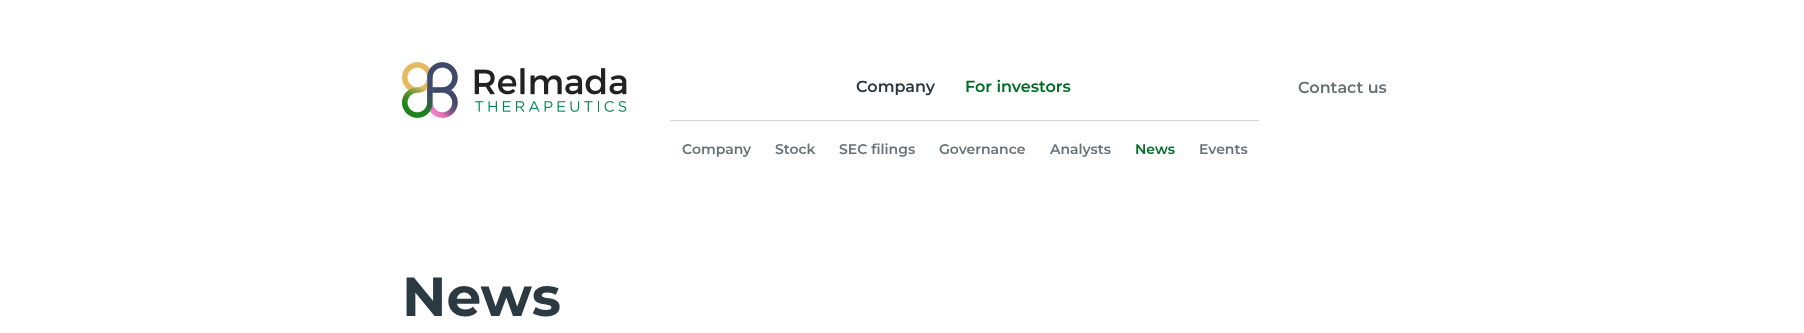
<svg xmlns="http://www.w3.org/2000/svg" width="1804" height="333">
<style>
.a{font:100 16px 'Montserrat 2';fill:#2b3942}
.b{font:100 16px 'Montserrat 2';fill:#006b25}
.c{font:100 16px 'Montserrat 2';fill:#677177}
.d{font:100 14px 'Montserrat 2';fill:#677177}
.e{font:100 14px 'Montserrat 2';fill:#006b25}
.f{font:100 55px Montserrat;fill:#2b3942}
</style>
<rect width="100%" height="100%" fill="#fff"/>
<image href="1.png" x="402" y="62" width="225" height="56"/>
<path fill="#d5d7d9" d="M670 120h589v1H670z"/>
<text class="a" x="856" y="92">Company</text>
<text class="b" x="965" y="92">For investors</text>
<text class="c" x="1298" y="93">Contact us</text>
<text class="d" x="682" y="154">Company</text>
<text class="d" x="775" y="154">Stock</text>
<text class="d" x="839" y="154">SEC filings</text>
<text class="d" x="939" y="154">Governance</text>
<text class="d" x="1050" y="154">Analysts</text>
<text class="e" x="1135" y="154">News</text>
<text class="d" x="1199" y="154">Events</text>
<text class="f" x="402" y="316">News</text>
</svg>
